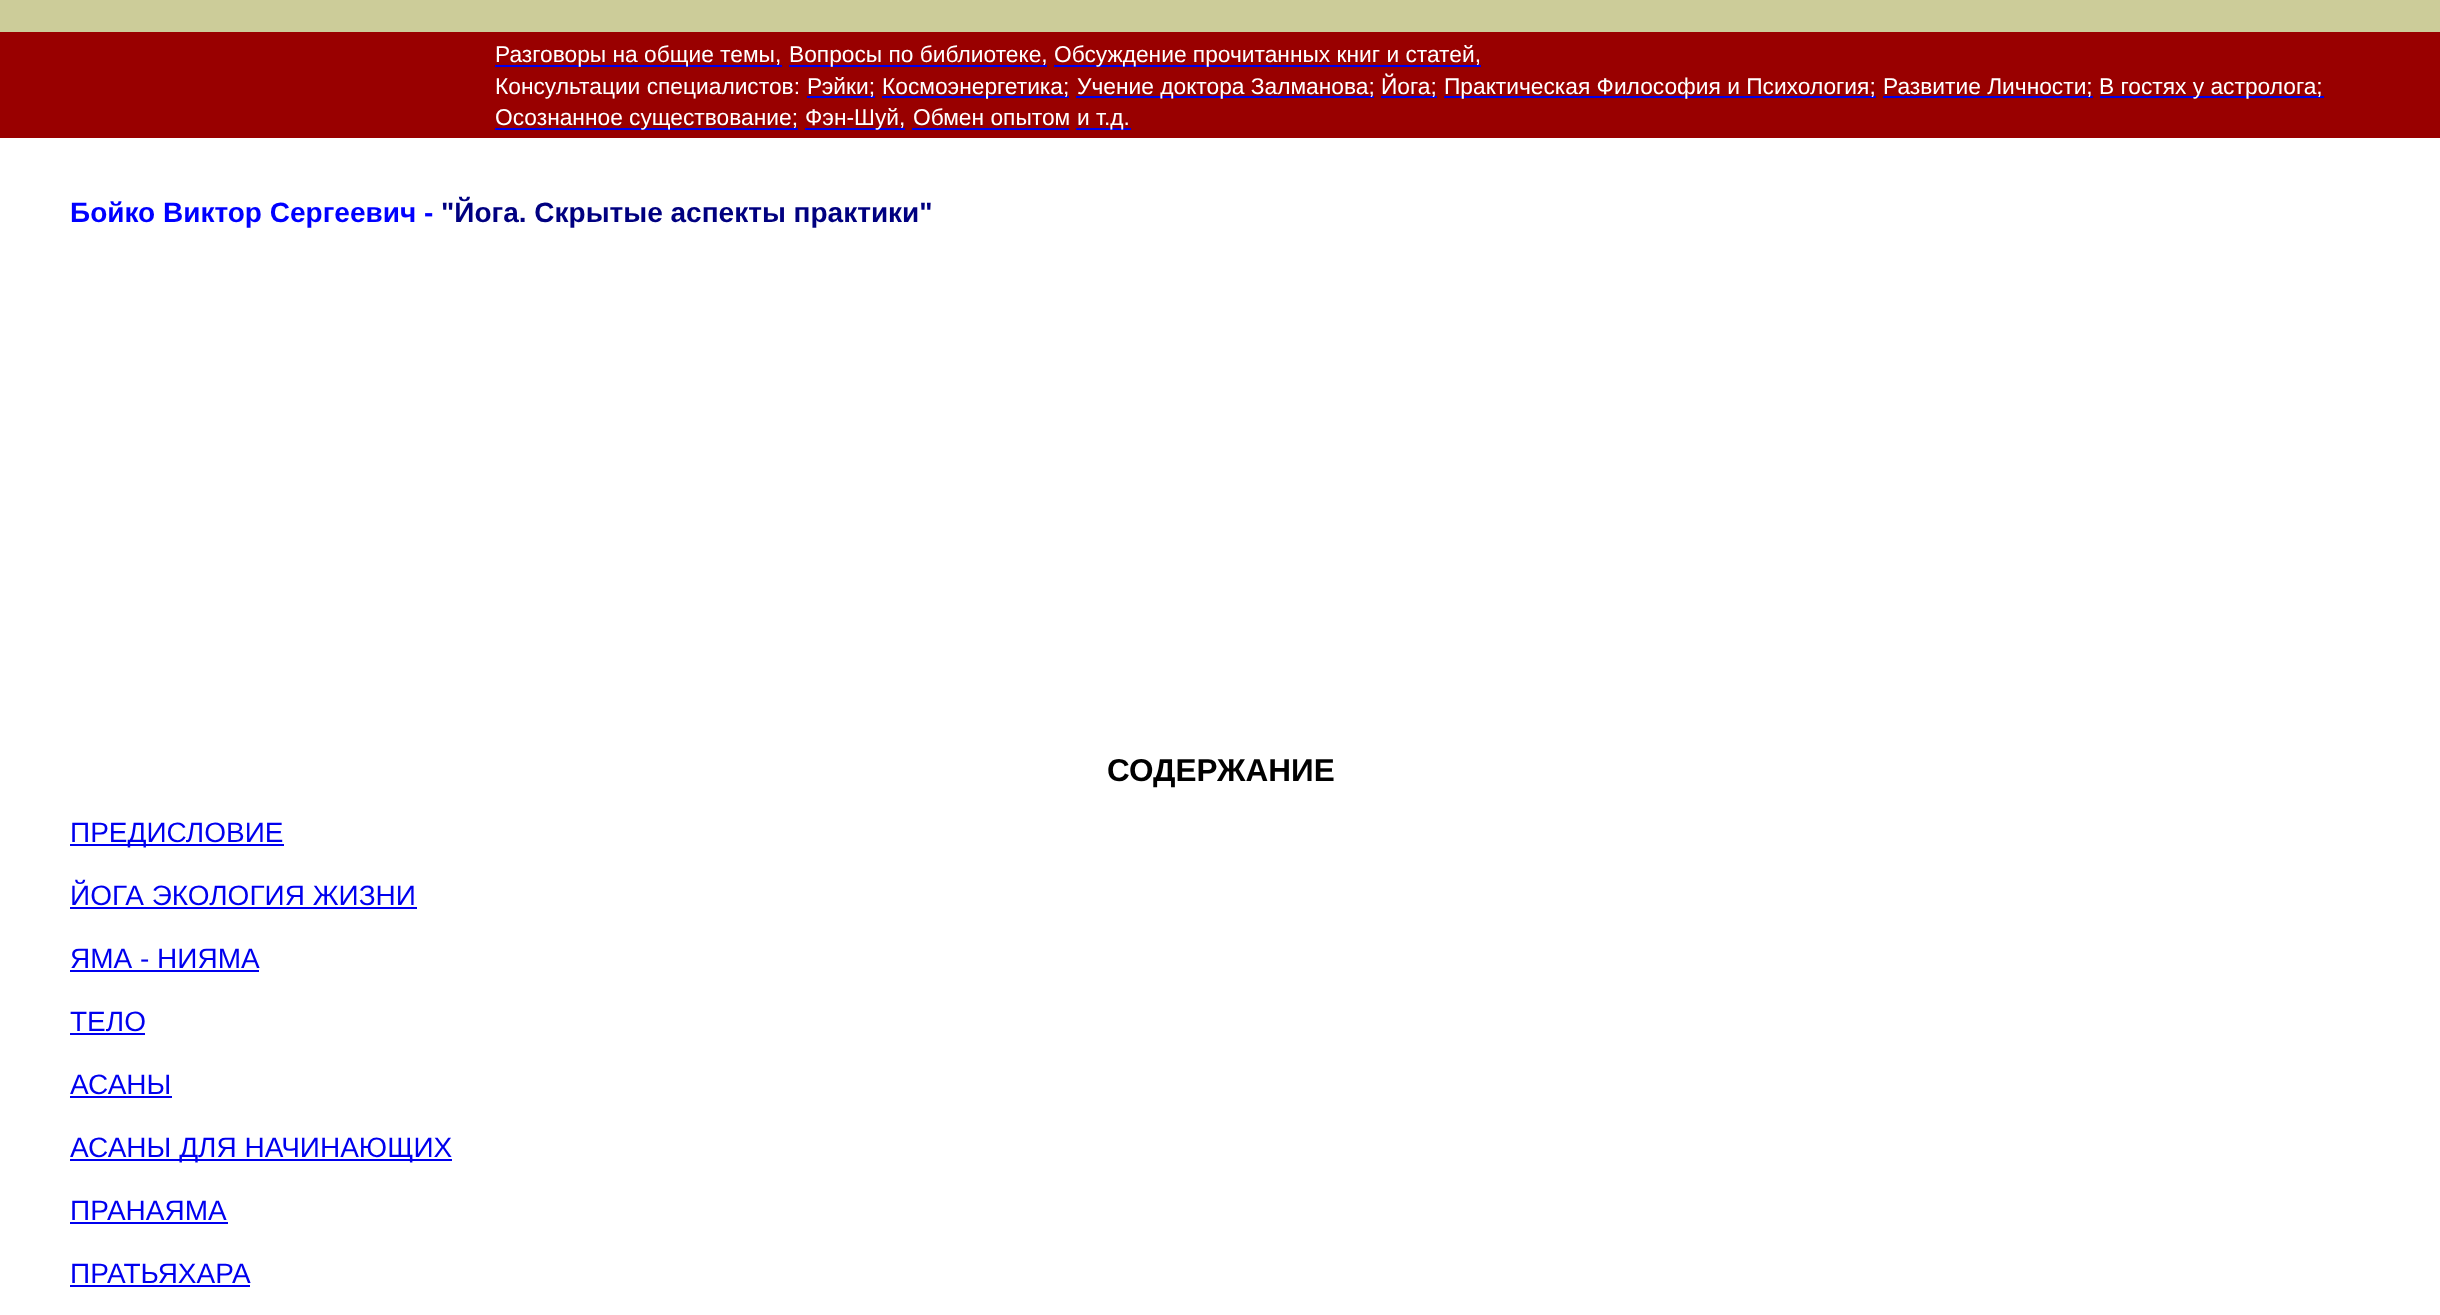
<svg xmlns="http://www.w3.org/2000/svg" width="2440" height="1315">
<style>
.a{font:22.75px Liberation Sans;fill:#fff}
.b{font:bold 28px Liberation Sans;fill:#00f}
.c{font:bold 28px Liberation Sans;fill:#000080}
.d{font:bold 31.5px Liberation Sans;fill:#000}
.e{font:28px Liberation Sans;fill:#00e}
</style>
<rect width="100%" height="100%" fill="#fff"/>
<path fill="#cc9" d="M0 0h2440v32H0z"/>
<path fill="#900" d="M0 32h2440v106H0z"/>
<path fill="#00e" d="M495 65h287v2H495z"/>
<path fill="#00e" d="M789 65h258v2H789z"/>
<path fill="#00e" d="M1054 65h427v2H1054z"/>
<path fill="#00e" d="M807 96h68v2H807z"/>
<path fill="#00e" d="M882 96h187v2H882z"/>
<path fill="#00e" d="M1076 96h298v2H1076z"/>
<path fill="#00e" d="M1381 96h56v2H1381z"/>
<path fill="#00e" d="M1444 96h432v2H1444z"/>
<path fill="#00e" d="M1883 96h210v2H1883z"/>
<path fill="#00e" d="M2100 96h224v2H2100z"/>
<path fill="#00e" d="M495 128h303v2H495z"/>
<path fill="#00e" d="M805 128h100v2H805z"/>
<path fill="#00e" d="M912 128h157v2H912z"/>
<path fill="#00e" d="M1076 128h55v2H1076z"/>
<path fill="#00e" d="M70 844h214v2H70z"/>
<path fill="#00e" d="M70 907h347v2H70z"/>
<path fill="#00e" d="M70 970h189v2H70z"/>
<path fill="#00e" d="M70 1033h75v2H70z"/>
<path fill="#00e" d="M70 1096h102v2H70z"/>
<path fill="#00e" d="M70 1159h382v2H70z"/>
<path fill="#00e" d="M70 1222h158v2H70z"/>
<path fill="#00e" d="M70 1285h180v2H70z"/>
<text class="a" x="495" y="62">Разговоры на общие темы,</text>
<text class="a" x="789" y="62">Вопросы по библиотеке,</text>
<text class="a" x="1054" y="62">Обсуждение прочитанных книг и статей,</text>
<text class="a" x="495" y="94">Консультации специалистов:</text>
<text class="a" x="807" y="94">Рэйки;</text>
<text class="a" x="882" y="94">Космоэнергетика;</text>
<text class="a" x="1077" y="94">Учение доктора Залманова;</text>
<text class="a" x="1381" y="94">Йога;</text>
<text class="a" x="1444" y="94">Практическая Философия и Психология;</text>
<text class="a" x="1883" y="94">Развитие Личности;</text>
<text class="a" x="2099" y="94">В гостях у астролога;</text>
<text class="a" x="495" y="125">Осознанное существование;</text>
<text class="a" x="805" y="125">Фэн-Шуй,</text>
<text class="a" x="913" y="125">Обмен опытом</text>
<text class="a" x="1077" y="125">и т.д.</text>
<text class="b" x="70" y="222">Бойко Виктор Сергеевич -</text>
<text class="c" x="441" y="222">"Йога. Скрытые аспекты практики"</text>
<text class="d" x="1107" y="781">СОДЕРЖАНИЕ</text>
<text class="e" x="70" y="842">ПРЕДИСЛОВИЕ</text>
<text class="e" x="70" y="905">ЙОГА ЭКОЛОГИЯ ЖИЗНИ</text>
<text class="e" x="70" y="968">ЯМА - НИЯМА</text>
<text class="e" x="70" y="1031">ТЕЛО</text>
<text class="e" x="70" y="1094">АСАНЫ</text>
<text class="e" x="70" y="1157">АСАНЫ ДЛЯ НАЧИНАЮЩИХ</text>
<text class="e" x="70" y="1220">ПРАНАЯМА</text>
<text class="e" x="70" y="1283">ПРАТЬЯХАРА</text>
</svg>
